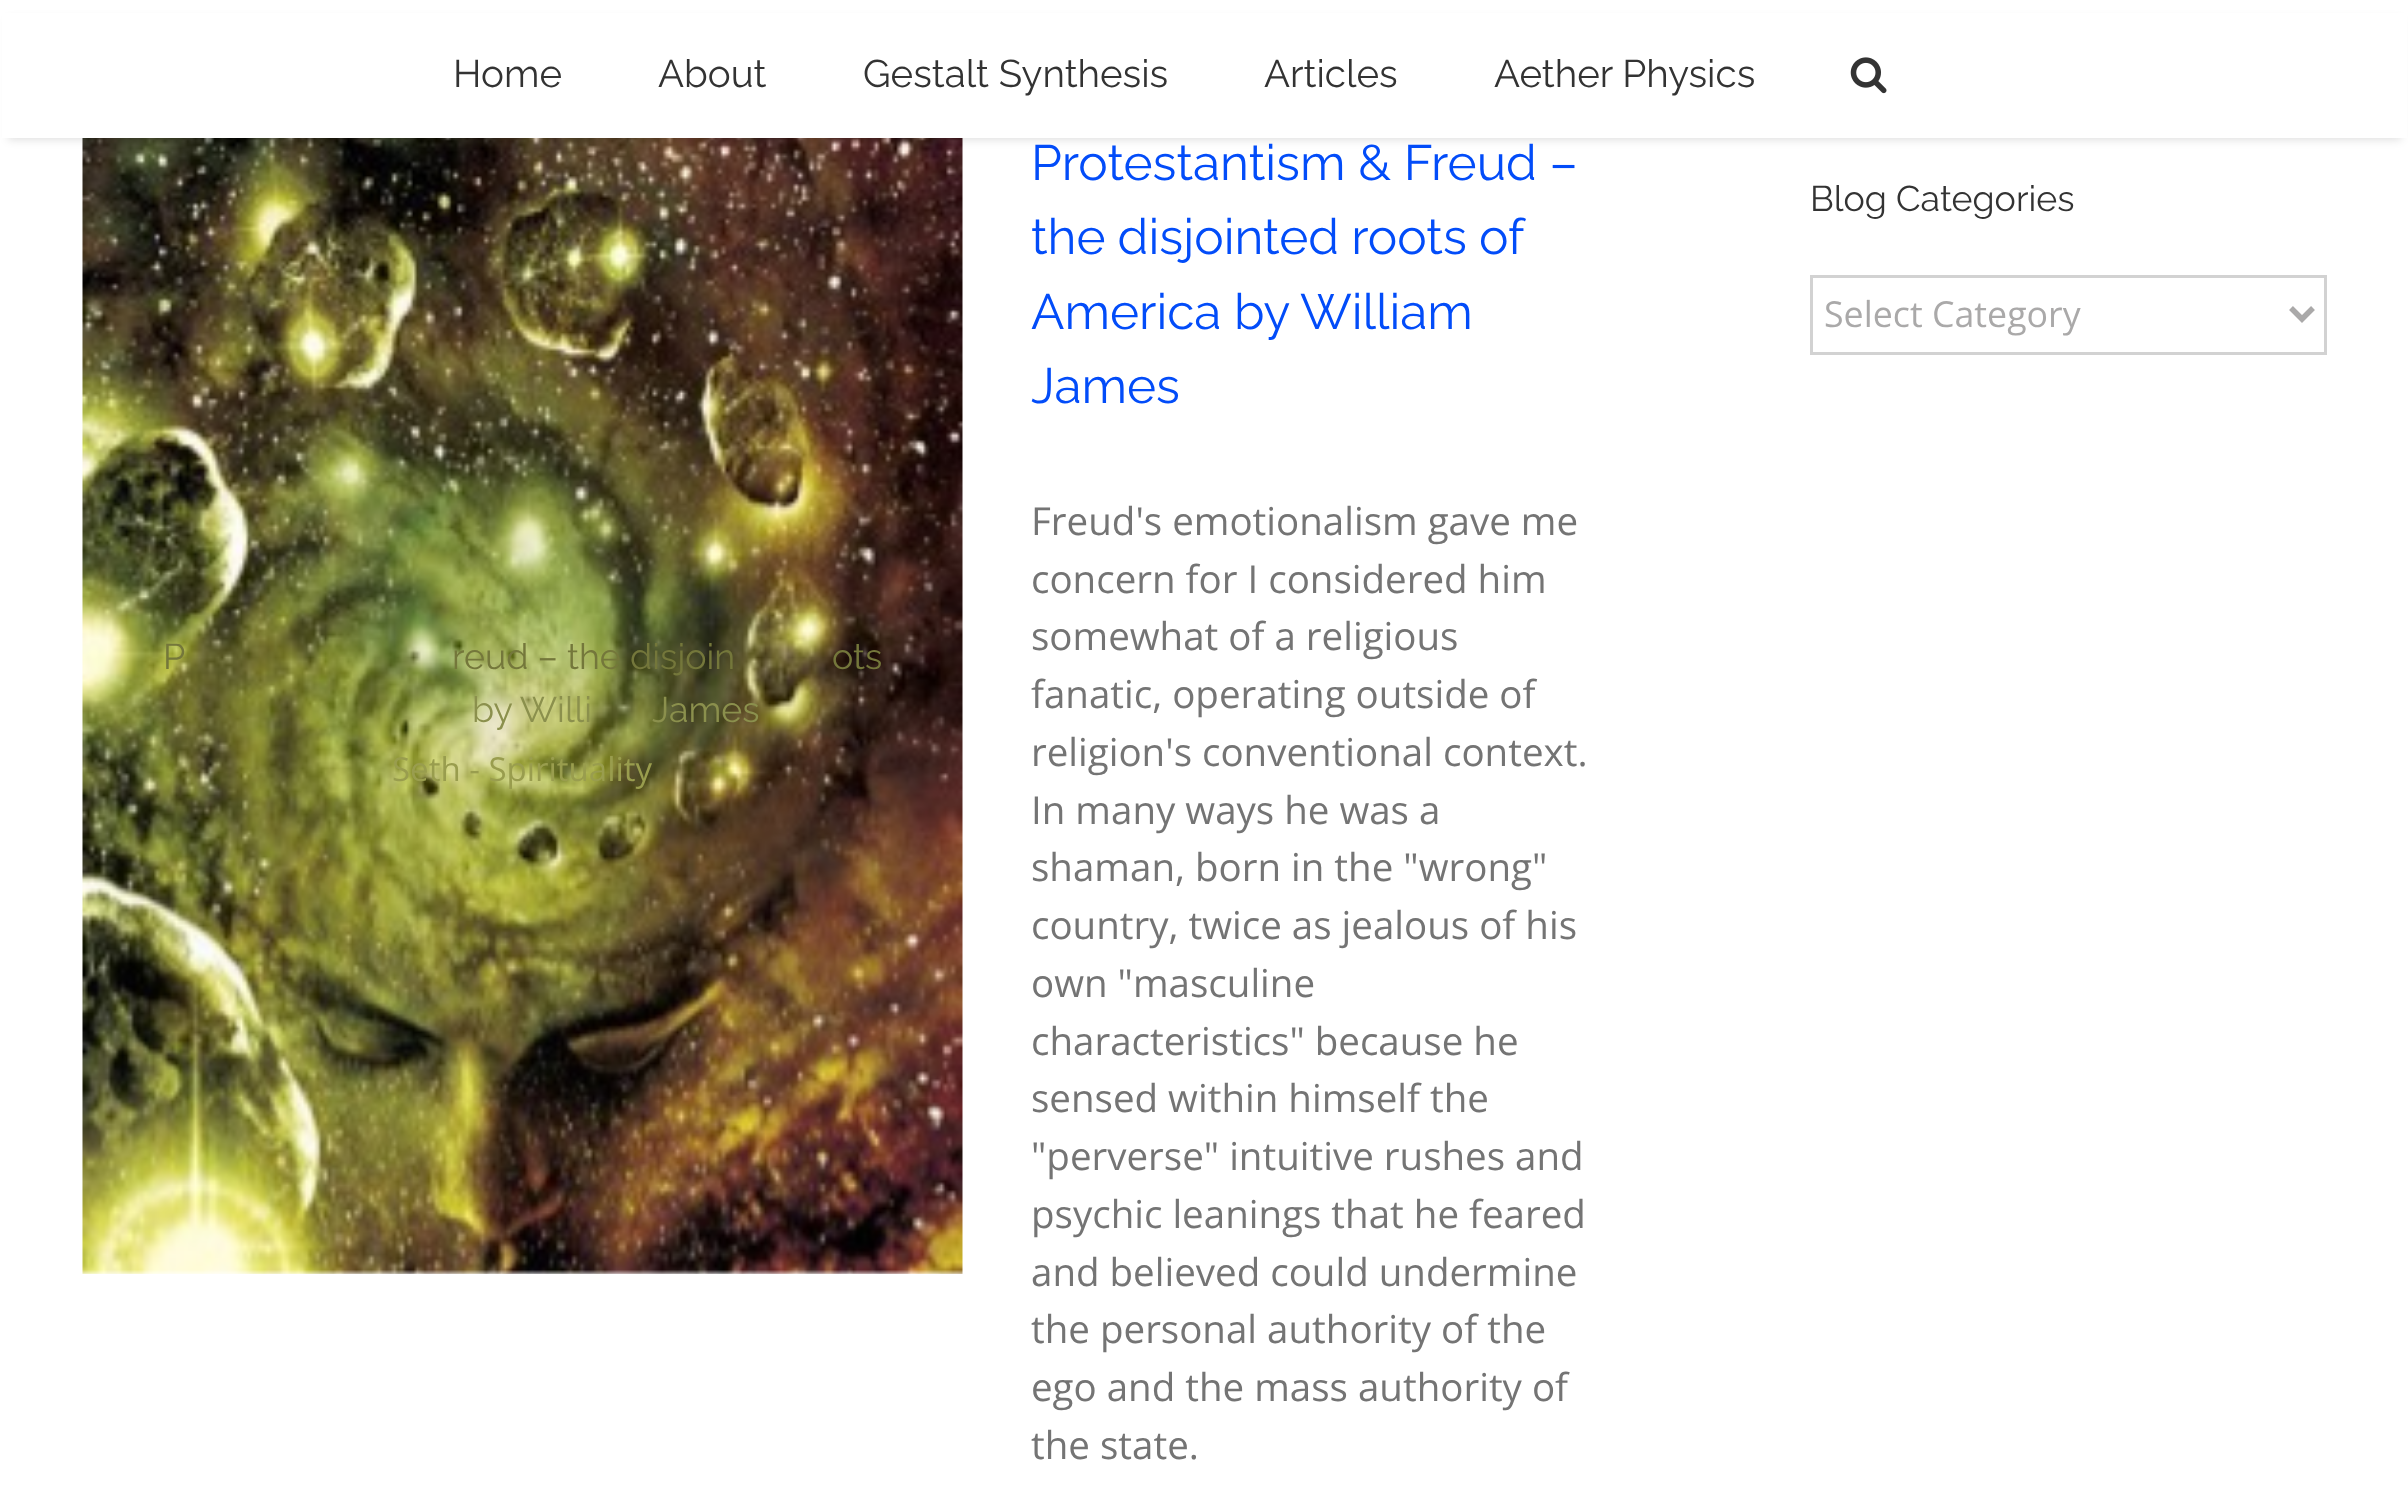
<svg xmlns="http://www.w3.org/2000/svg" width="2408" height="1500">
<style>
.a{font:100 38.5px Raleway;fill:#333}
.b{font:100 35.75px Raleway;fill:#74773b}
.c{font:100 35.75px Raleway;fill:#8b904d}
.d{font:33px Open Sans;fill:#999d4e}
.e{font:100 49.5px Raleway;fill:#024cf9}
.f{font:38.5px Open Sans;fill:#747474}
.g{font:100 35.75px Raleway;fill:#333}
.h{font:35.75px Open Sans;fill:#aaa9a9}
</style>
<rect width="100%" height="100%" fill="#fff"/>
<image href="2.png" x="82" y="138" width="881" height="1136"/>
<path fill="#0000001f" filter="blur(4px)" d="M8 19h2393v121H8z"/>
<path fill="#fff" d="M2 13h2405v125H2z"/>
<image href="1.png" x="1850" y="57" width="37" height="37"/>
<path fill="none" stroke="#d2d2d2" stroke-width="3" d="M1811.5 276.5h514v77H1811.5z"/>
<path fill="none" stroke="#aaa9a9" stroke-width="5.5" d="M2291 308l11 11l11-11"/>
<text class="a" x="453" y="87">Home</text>
<text class="a" x="658" y="87">About</text>
<text class="a" x="863" y="87">Gestalt Synthesis</text>
<text class="a" x="1264" y="87">Articles</text>
<text class="a" x="1494" y="87">Aether Physics</text>
<text class="b" x="163" y="669">P</text>
<text class="b" x="452" y="669">reud – the disjoin</text>
<text class="b" x="832" y="669">ots</text>
<text class="c" x="472" y="722">by Willi</text>
<text class="c" x="652" y="722">James</text>
<text class="d" x="392" y="781">Seth - Spirituality</text>
<text class="e" x="1031" y="180">Protestantism &amp; Freud –</text>
<text class="e" x="1031" y="254" word-spacing="-0.5">the disjointed roots of</text>
<text class="e" x="1031" y="329">America by William</text>
<text class="e" x="1031" y="403">James</text>
<text class="f" x="1031" y="535">Freud's emotionalism gave me</text>
<text class="f" x="1031" y="593">concern for I considered him</text>
<text class="f" x="1031" y="650">somewhat of a religious</text>
<text class="f" x="1031" y="708">fanatic, operating outside of</text>
<text class="f" x="1031" y="766">religion's conventional context.</text>
<text class="f" x="1031" y="824">In many ways he was a</text>
<text class="f" x="1031" y="881">shaman, born in the "wrong"</text>
<text class="f" x="1031" y="939">country, twice as jealous of his</text>
<text class="f" x="1031" y="997">own "masculine</text>
<text class="f" x="1031" y="1055">characteristics" because he</text>
<text class="f" x="1031" y="1112">sensed within himself the</text>
<text class="f" x="1031" y="1170">"perverse" intuitive rushes and</text>
<text class="f" x="1031" y="1228">psychic leanings that he feared</text>
<text class="f" x="1031" y="1286">and believed could undermine</text>
<text class="f" x="1031" y="1343">the personal authority of the</text>
<text class="f" x="1031" y="1401">ego and the mass authority of</text>
<text class="f" x="1031" y="1459">the state.</text>
<text class="g" x="1810" y="211">Blog Categories</text>
<text class="h" x="1824" y="327">Select Category</text>
</svg>
